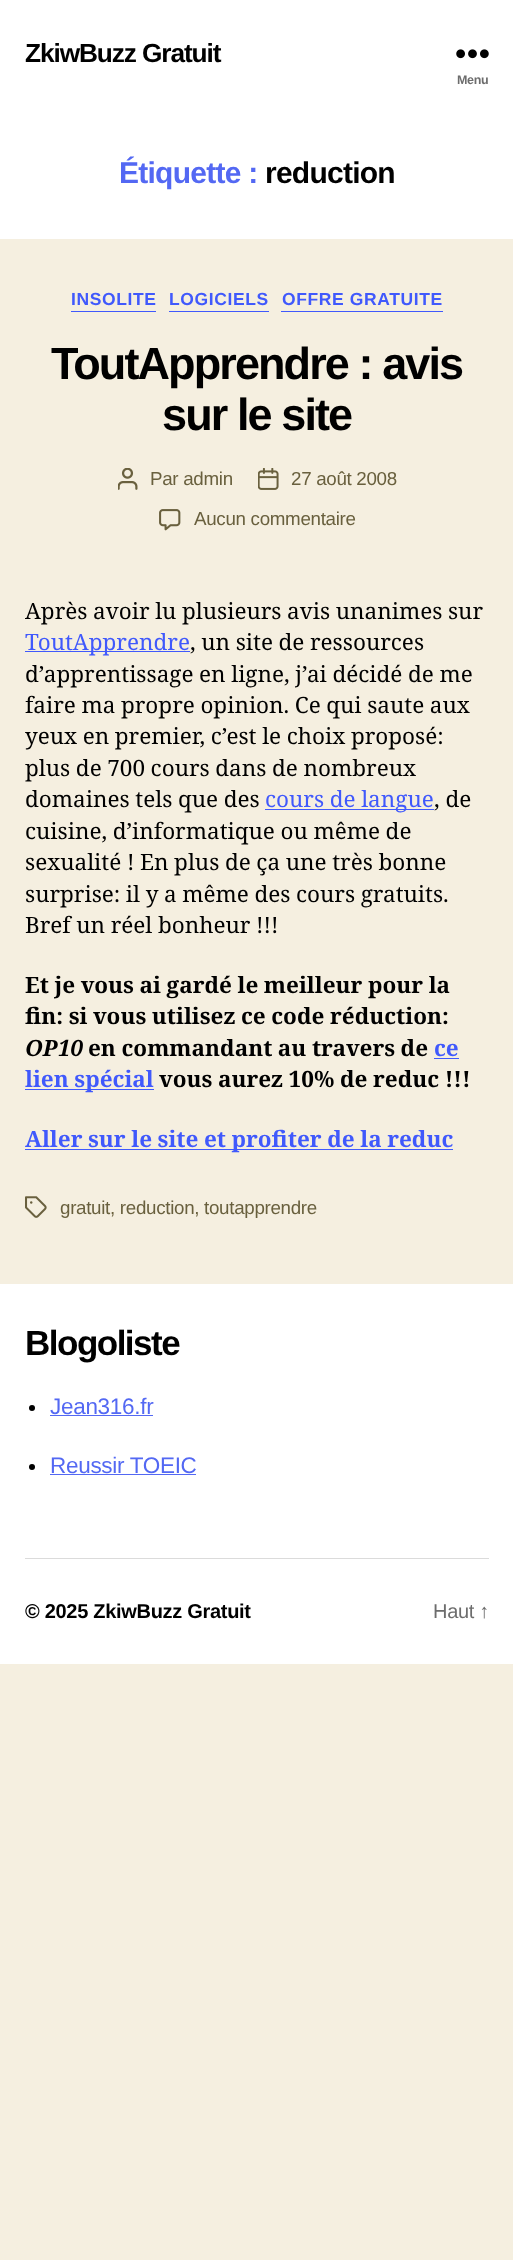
<svg xmlns="http://www.w3.org/2000/svg" width="513" height="2260">
<style>
.a{font:bold 26.25px Liberation Sans;letter-spacing:-1.1px;fill:#000}
.b{font:bold 12.5px Liberation Sans;letter-spacing:-0.3px;fill:#6d6d6d}
.c{font:bold 30px Liberation Sans;letter-spacing:-0.75px;fill:#5368f3}
.d{font:bold 30px Liberation Sans;letter-spacing:-0.75px;fill:#000}
.e{font:bold 17.5px Liberation Sans;letter-spacing:0.6px;fill:#4059fc}
.f{font:bold 45px Liberation Sans;letter-spacing:-1.9px;fill:#000}
.g{font:18.75px Liberation Sans;letter-spacing:-0.3px;fill:#69603e}
.h{font:22.5px Noto Serif;fill:#000}
.i{font:22.5px Noto Serif;fill:#4059fc}
.j{font:bold 22.5px Noto Serif;fill:#000}
.k{font:italic bold 22.5px Noto Serif;fill:#000}
.l{font:bold 22.5px Noto Serif;fill:#4059fc}
.m{font:bold 35px Liberation Sans;letter-spacing:-1.5px;fill:#000}
.n{font:22.5px Liberation Sans;letter-spacing:-0.3px;fill:#5368f3}
.o{font:bold 20px Liberation Sans;letter-spacing:-0.3px;fill:#000}
.p{font:20px Liberation Sans;letter-spacing:-0.3px;fill:#6d6d6d}
</style>
<rect width="100%" height="100%" fill="#f5efe0"/>
<path fill="#fff" d="M0 0h513v239H0z"/>
<image href="1.png" x="456" y="49" width="33" height="10"/>
<path fill="#4059fc" d="M71 311h85v1H71z"/>
<path fill="#4059fc" d="M169 311h100v1H169z"/>
<path fill="#4059fc" d="M281 311h162v1H281z"/>
<image href="2.png" x="118" y="468" width="20" height="22"/>
<image href="3.png" x="258" y="468" width="21" height="22"/>
<image href="4.png" x="159" y="509" width="22" height="22"/>
<path fill="#4059fc" d="M25 651h165v1H25z"/>
<path fill="#4059fc" d="M265 809h169v1H265z"/>
<path fill="#4059fc" d="M434 1058h25v1H434z"/>
<path fill="#4059fc" d="M25 1089h129v1H25z"/>
<path fill="#4059fc" d="M25 1149h428v1H25z"/>
<image href="5.png" x="25" y="1196" width="22" height="22"/>
<path fill="#fff" d="M0 1284h513v380H0z"/>
<path fill="#dbdbdb" d="M25 1558h464v1H25z"/>
<circle fill="#000" cx="32" cy="1408" r="3"/>
<path fill="#5368f3" d="M50 1415h103v1H50z"/>
<circle fill="#000" cx="32" cy="1467" r="3"/>
<path fill="#5368f3" d="M50 1474h146v1H50z"/>
<text class="a" x="25" y="62">ZkiwBuzz Gratuit</text>
<text class="b" x="457" y="84">Menu</text>
<text class="c" x="119" y="183">Étiquette :</text>
<text class="d" x="265" y="183">reduction</text>
<text class="e" x="71" y="305">INSOLITE</text>
<text class="e" x="169" y="305">LOGICIELS</text>
<text class="e" x="282" y="305">OFFRE GRATUITE</text>
<text class="f" x="51" y="379">ToutApprendre : avis</text>
<text class="f" x="162" y="430">sur le site</text>
<text class="g" x="150" y="485">Par admin</text>
<text class="g" x="291" y="485">27 août 2008</text>
<text class="g" x="194" y="525">Aucun commentaire</text>
<text class="h" x="25" y="619" word-spacing="-0.25">Après avoir lu plusieurs avis unanimes sur</text>
<text class="i" x="25" y="650">ToutApprendre</text>
<text class="h" x="190" y="650" word-spacing="-0.25">, un site de ressources</text>
<text class="h" x="25" y="682" word-spacing="-0.25">d’apprentissage en ligne, j’ai décidé de me</text>
<text class="h" x="25" y="713" word-spacing="-0.25">faire ma propre opinion. Ce qui saute aux</text>
<text class="h" x="25" y="744" word-spacing="-0.25">yeux en premier, c’est le choix proposé:</text>
<text class="h" x="25" y="776" word-spacing="-0.25">plus de 700 cours dans de nombreux</text>
<text class="h" x="25" y="807" word-spacing="-0.25">domaines tels que des</text>
<text class="i" x="265" y="807" word-spacing="-0.25">cours de langue</text>
<text class="h" x="434" y="807">, de</text>
<text class="h" x="25" y="839" word-spacing="-0.25">cuisine, d’informatique ou même de</text>
<text class="h" x="25" y="870" word-spacing="-0.25">sexualité ! En plus de ça une très bonne</text>
<text class="h" x="25" y="902" word-spacing="-0.25">surprise: il y a même des cours gratuits.</text>
<text class="h" x="25" y="933" word-spacing="-0.25">Bref un réel bonheur !!!</text>
<text class="j" x="25" y="993" word-spacing="-0.25">Et je vous ai gardé le meilleur pour la</text>
<text class="j" x="25" y="1024" word-spacing="-0.25">fin: si vous utilisez ce code réduction:</text>
<text class="k" x="25" y="1056">OP10</text>
<text class="j" x="88" y="1056" word-spacing="-0.25">en commandant au travers de</text>
<text class="l" x="434" y="1056">ce</text>
<text class="l" x="25" y="1087" word-spacing="-0.25">lien spécial</text>
<text class="j" x="159" y="1087" word-spacing="-0.25">vous aurez 10% de reduc !!!</text>
<text class="l" x="25" y="1147" word-spacing="-0.25">Aller sur le site et profiter de la reduc</text>
<text class="g" x="60" y="1214">gratuit, reduction, toutapprendre</text>
<text class="m" x="25" y="1355">Blogoliste</text>
<text class="n" x="50" y="1414">Jean316.fr</text>
<text class="n" x="50" y="1473">Reussir TOEIC</text>
<text class="o" x="25" y="1618">© 2025 ZkiwBuzz Gratuit</text>
<text class="p" x="433" y="1618">Haut ↑</text>
</svg>
